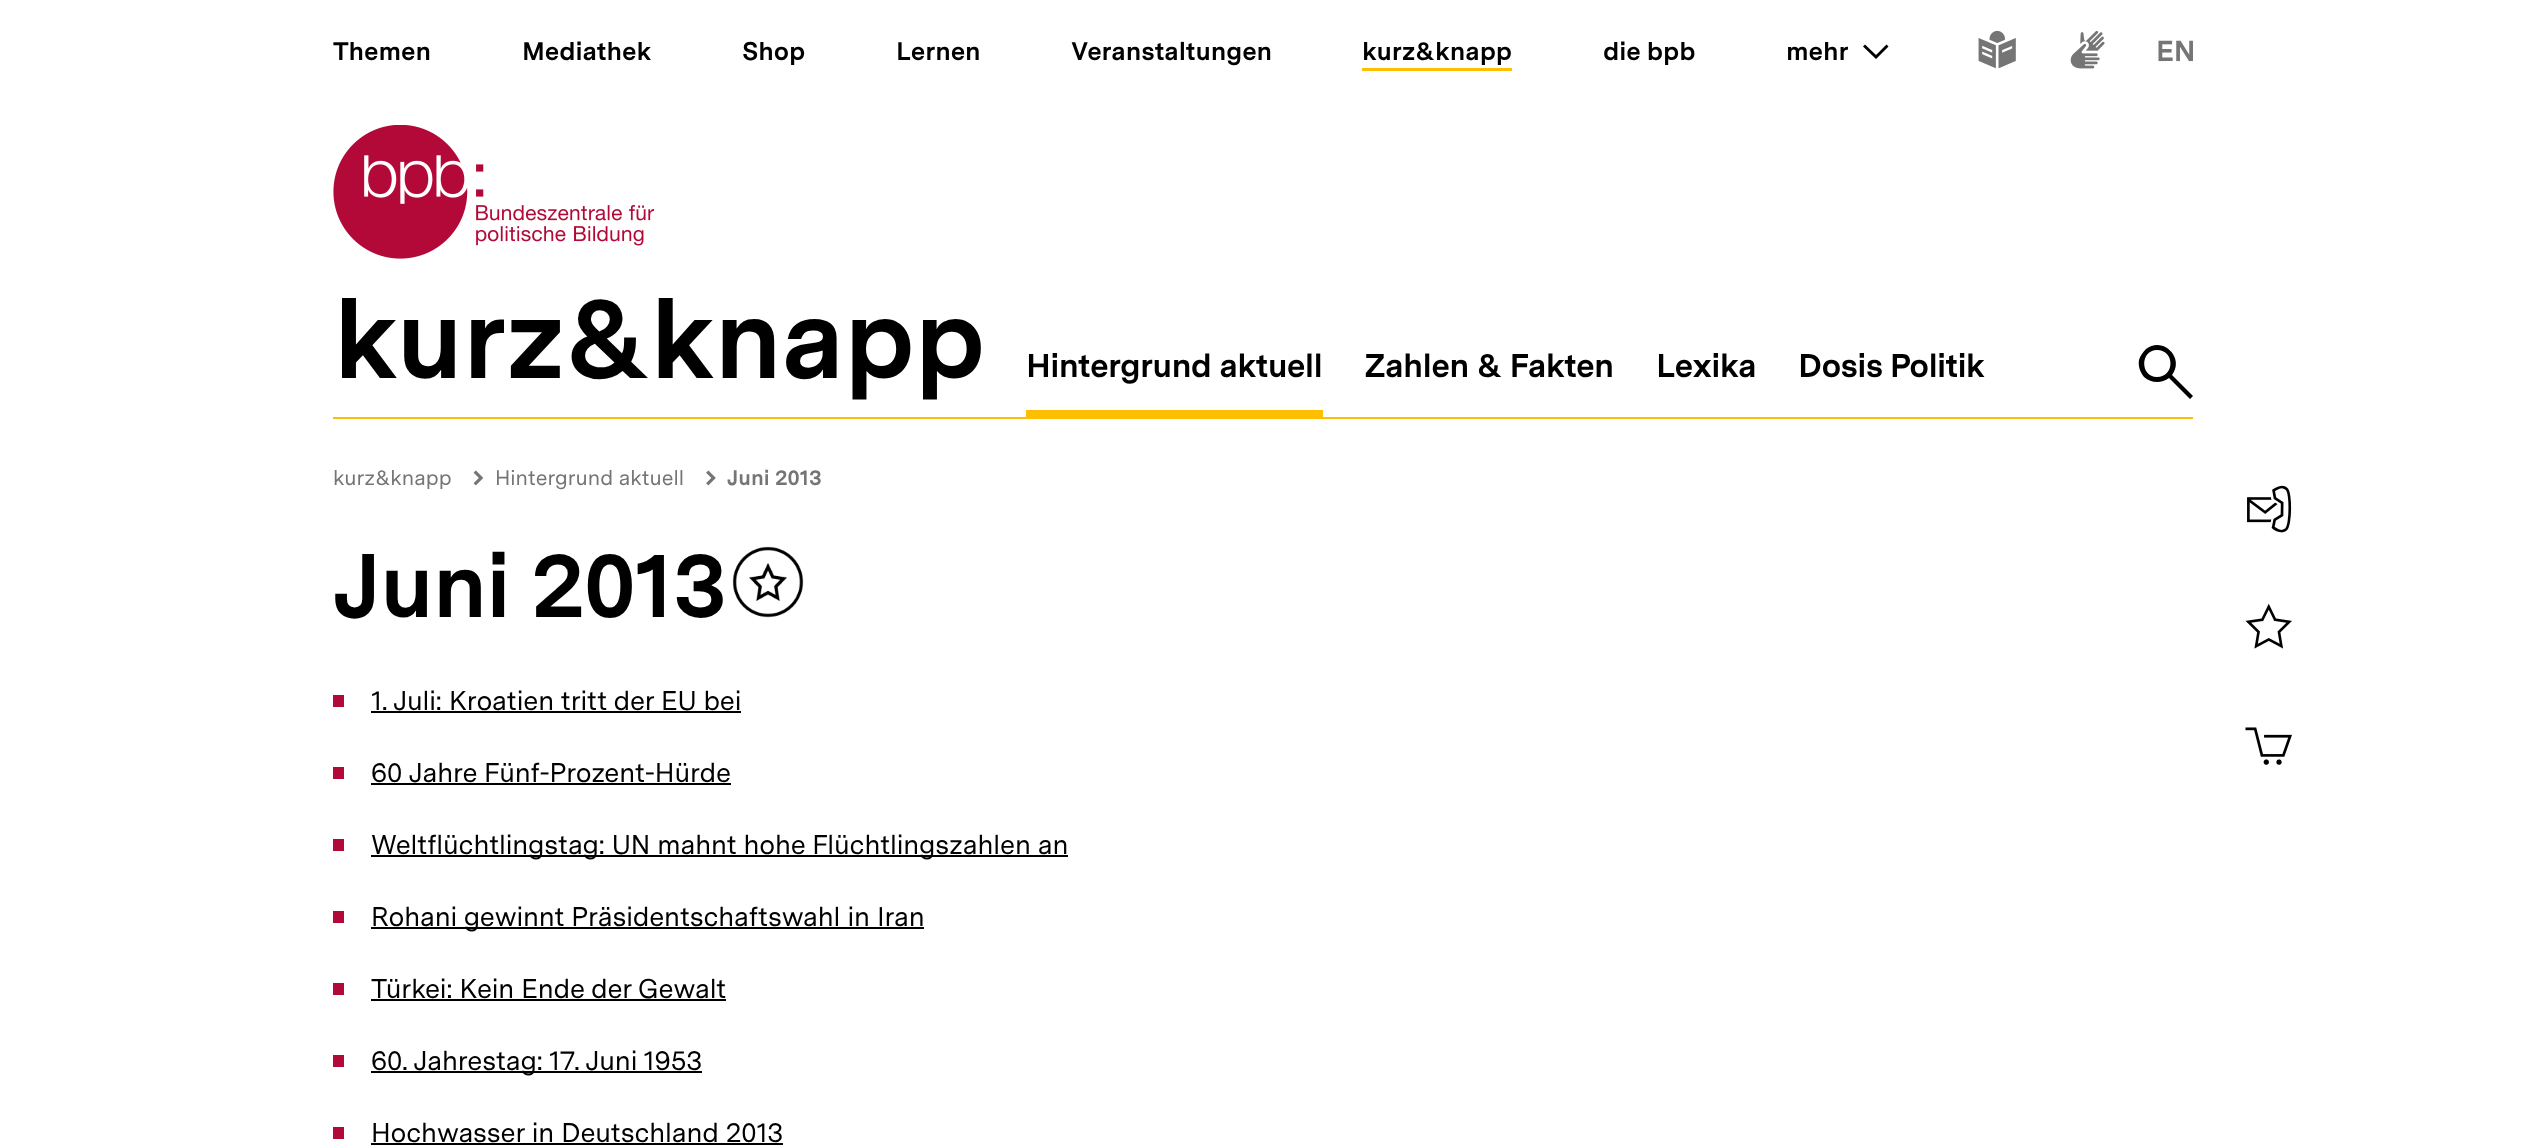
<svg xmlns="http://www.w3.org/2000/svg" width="2525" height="1148">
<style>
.a{font:bold 25.5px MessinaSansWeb;letter-spacing:-0.1px;fill:#000}
.b{font:bold 112.5px MessinaSansWeb;letter-spacing:-1.5px;fill:#000}
.c{font:bold 33px MessinaSansWeb;letter-spacing:-0.75px;fill:#000}
.d{font:21px MessinaSansWeb;fill:#757575}
.e{font:bold 21px MessinaSansWeb;fill:#757575}
.f{font:bold 90px MessinaSansWeb;letter-spacing:-1.5px;fill:#000}
.g{font:27px MessinaSansWeb;letter-spacing:-0.15px;fill:#000}
</style>
<rect width="100%" height="100%" fill="#fff"/>
<path fill="#febe02" d="M333 417h1860v2H333z"/>
<path fill="#000" d="M1865 44.5l11 10.5l10.5-10.5l2 2l-12.5 12.5l-13-12.5z"/>
<path fill="#febe02" d="M1362 68h150v3H1362z"/>
<image href="1.png" x="1978" y="30" width="38" height="39"/>
<image href="2.png" x="2070" y="30" width="35" height="39"/>
<image href="3.png" x="2158" y="40" width="35" height="22"/>
<image href="4.png" x="333" y="125" width="322" height="134"/>
<path fill="#febe02" d="M1026 410h297v7H1026z"/>
<path fill="#000" d="M2172 375c13-17-9-39-26-26c-3 3-6 7-7 11c-1 6 1 12 5 17c7 6 17 7 25 1l21 21l3-3zm-15 2c-17 0-17-27 0-27c18 0 18 27 0 27z"/>
<image href="5.png" x="2247" y="485" width="45" height="48"/>
<image href="6.png" x="2245" y="603" width="47" height="46"/>
<image href="7.png" x="2245" y="727" width="47" height="38"/>
<image href="8.png" x="473" y="470" width="11" height="16"/>
<image href="9.png" x="706" y="470" width="10" height="16"/>
<image href="10.png" x="732" y="546" width="72" height="72"/>
<image href="11.png" x="749" y="563" width="38" height="38"/>
<path fill="#b20938" d="M333 695h11v12H333z"/>
<path fill="#000" d="M371 711h370v2H371z"/>
<path fill="#b20938" d="M333 767h11v12H333z"/>
<path fill="#000" d="M371 783h360v2H371z"/>
<path fill="#b20938" d="M333 839h11v12H333z"/>
<path fill="#000" d="M371 855h697v2H371z"/>
<path fill="#b20938" d="M333 911h11v12H333z"/>
<path fill="#000" d="M371 927h553v2H371z"/>
<path fill="#b20938" d="M333 983h11v12H333z"/>
<path fill="#000" d="M371 999h355v2H371z"/>
<path fill="#b20938" d="M333 1055h11v12H333z"/>
<path fill="#000" d="M371 1071h331v2H371z"/>
<path fill="#b20938" d="M333 1127h11v12H333z"/>
<path fill="#000" d="M371 1143h412v2H371z"/>
<text class="a" x="333" y="60">Themen</text>
<text class="a" x="522" y="60">Mediathek</text>
<text class="a" x="742" y="60">Shop</text>
<text class="a" x="896" y="60">Lernen</text>
<text class="a" x="1071" y="60">Veranstaltungen</text>
<text class="a" x="1362" y="60">kurz&amp;knapp</text>
<text class="a" x="1603" y="60">die bpb</text>
<text class="a" x="1786" y="60">mehr</text>
<text class="b" x="333" y="378">kurz&amp;knapp</text>
<text class="c" x="1026" y="377">Hintergrund aktuell</text>
<text class="c" x="1364" y="377">Zahlen &amp; Fakten</text>
<text class="c" x="1656" y="377">Lexika</text>
<text class="c" x="1798" y="377">Dosis Politik</text>
<text class="d" x="333" y="485">kurz&amp;knapp</text>
<text class="d" x="495" y="485">Hintergrund aktuell</text>
<text class="e" x="727" y="485">Juni 2013</text>
<text class="f" x="333" y="617">Juni 2013</text>
<text class="g" x="371" y="710">1. Juli: Kroatien tritt der EU bei</text>
<text class="g" x="371" y="782">60 Jahre Fünf-Prozent-Hürde</text>
<text class="g" x="371" y="854">Weltflüchtlingstag: UN mahnt hohe Flüchtlingszahlen an</text>
<text class="g" x="371" y="926">Rohani gewinnt Präsidentschaftswahl in Iran</text>
<text class="g" x="371" y="998">Türkei: Kein Ende der Gewalt</text>
<text class="g" x="371" y="1070">60. Jahrestag: 17. Juni 1953</text>
<text class="g" x="371" y="1142">Hochwasser in Deutschland 2013</text>
</svg>
